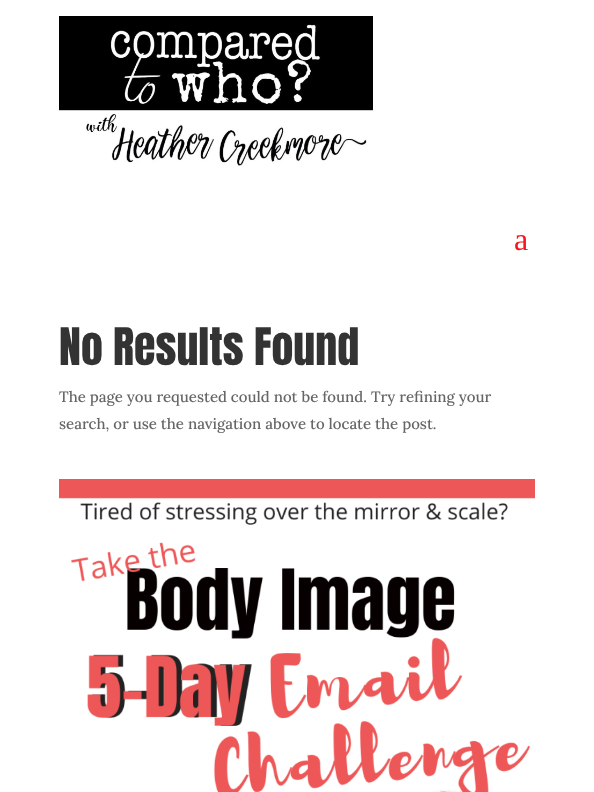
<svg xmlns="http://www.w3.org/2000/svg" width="594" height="792">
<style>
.a{font:32px Liberation Serif;fill:#f51720}
.b{font:44px Anton;fill:#333}
.c{font:500 15px Lora;fill:#666}
</style>
<rect width="100%" height="100%" fill="#fff"/>
<image href="1.png" x="59" y="16" width="314" height="150"/>
<image href="2.png" x="59" y="479" width="476" height="313"/>
<text class="a" x="514" y="250">a</text>
<text class="b" x="59" y="365">No Results Found</text>
<text class="c" x="59" y="402">The page you requested could not be found. Try refining your</text>
<text class="c" x="59" y="429">search, or use the navigation above to locate the post.</text>
</svg>
